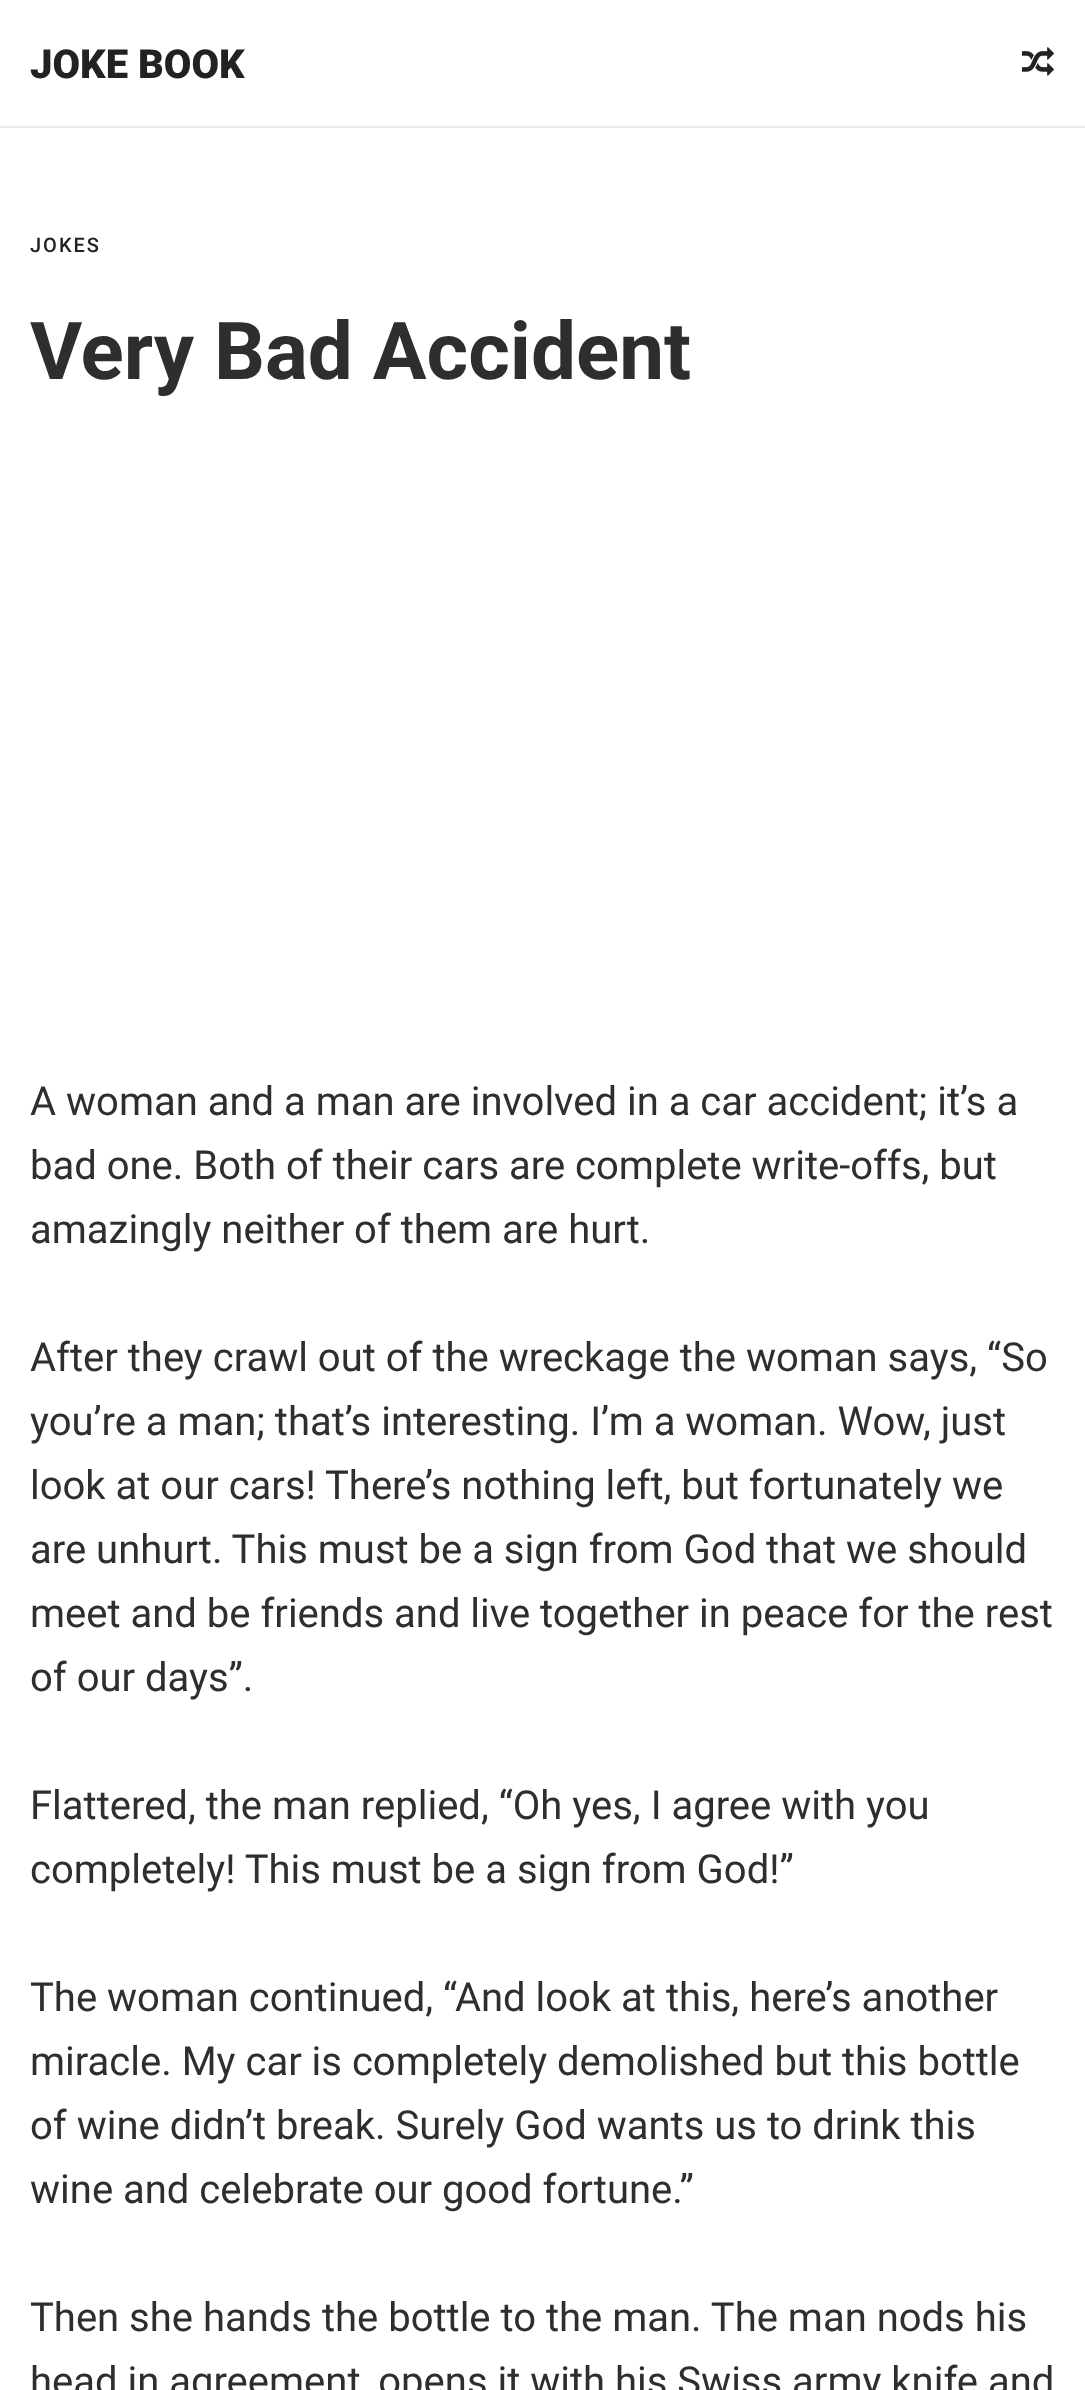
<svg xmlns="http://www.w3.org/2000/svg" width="1085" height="2390">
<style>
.a{font:900 40px Roboto;fill:#222}
.b{font:500 20px Roboto;letter-spacing:2px;fill:#222}
.c{font:bold 80px Roboto;fill:#2e2e30}
.d{font:40px Roboto;fill:#2e2e30}
</style>
<rect width="100%" height="100%" fill="#fff"/>
<path fill="#eaeaea" d="M0 126h1085v2H0z"/>
<image href="1.png" x="1022" y="47" width="32" height="29"/>
<text class="a" x="30" y="78">JOKE BOOK</text>
<text class="b" x="30" y="252">JOKES</text>
<text class="c" x="30" y="379">Very Bad Accident</text>
<text class="d" x="30" y="1115">A woman and a man are involved in a car accident; it’s a</text>
<text class="d" x="30" y="1179">bad one. Both of their cars are complete write-offs, but</text>
<text class="d" x="30" y="1243">amazingly neither of them are hurt.</text>
<text class="d" x="30" y="1371">After they crawl out of the wreckage the woman says, “So</text>
<text class="d" x="30" y="1435">you’re a man; that’s interesting. I’m a woman. Wow, just</text>
<text class="d" x="30" y="1499">look at our cars! There’s nothing left, but fortunately we</text>
<text class="d" x="30" y="1563">are unhurt. This must be a sign from God that we should</text>
<text class="d" x="30" y="1627">meet and be friends and live together in peace for the rest</text>
<text class="d" x="30" y="1691">of our days”.</text>
<text class="d" x="30" y="1819">Flattered, the man replied, “Oh yes, I agree with you</text>
<text class="d" x="30" y="1883">completely! This must be a sign from God!”</text>
<text class="d" x="30" y="2011">The woman continued, “And look at this, here’s another</text>
<text class="d" x="30" y="2075">miracle. My car is completely demolished but this bottle</text>
<text class="d" x="30" y="2139">of wine didn’t break. Surely God wants us to drink this</text>
<text class="d" x="30" y="2203">wine and celebrate our good fortune.”</text>
<text class="d" x="30" y="2331">Then she hands the bottle to the man. The man nods his</text>
<text class="d" x="30" y="2395">head in agreement, opens it with his Swiss army knife and</text>
</svg>
